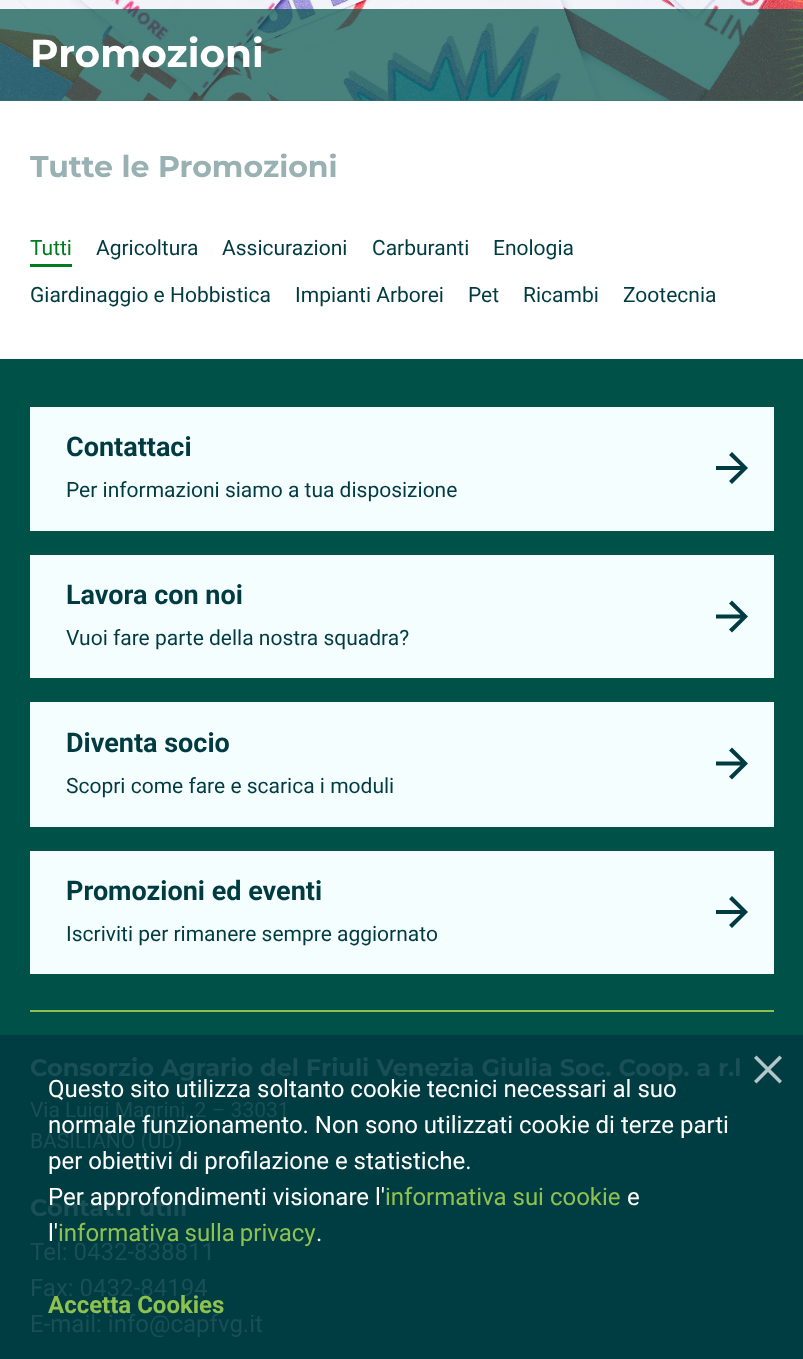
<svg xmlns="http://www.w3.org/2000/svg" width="803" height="1359">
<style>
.a{font:bold 39px Montserrat;fill:#fff}
.b{font:bold 30px Montserrat;fill:#99b1b3}
.c{font:21px Roboto;fill:#007b1f}
.d{font:21px Roboto;fill:#003b42}
.e{font:bold 27px Roboto;fill:#003b42}
.f{font:bold 24px Montserrat;fill:#194f55}
.g{font:21px Roboto;fill:#194f55}
.h{font:24px Roboto;fill:#194f55}
.i{font:24px Roboto;fill:#fff}
.j{font:24px Roboto;fill:#8fc150}
.k{font:bold 24px Roboto;fill:#8fc150}
</style>
<rect width="100%" height="100%" fill="#fff"/>
<path fill="#3d7670" d="M0 100h803v1H0z"/>
<image href="1.png" x="0" y="0" width="803" height="101"/>
<path fill="#007b1f" d="M30 264h42v3H30z"/>
<path fill="#005148" d="M0 359h803v676H0z"/>
<path fill="#003d43" d="M0 1035h803v324H0z"/>
<path fill="#8fc150" d="M30 1010h744v2H30z"/>
<path fill="#f5feff" d="M30 407h744v124H30z"/>
<path fill="#003b42" d="M732 452l-3 3l11.5 11h-24.5v4h24.5l-11.5 11l3 3l16-16z"/>
<path fill="#f5feff" d="M30 555h744v123H30z"/>
<path fill="#003b42" d="M732 600.5l-3 3l11.5 11h-24.5v4h24.5l-11.5 11l3 3l16-16z"/>
<path fill="#f5feff" d="M30 702h744v125H30z"/>
<path fill="#003b42" d="M732 747.5l-3 3l11.5 11h-24.5v4h24.5l-11.5 11l3 3l16-16z"/>
<path fill="#f5feff" d="M30 851h744v123H30z"/>
<path fill="#003b42" d="M732 896l-3 3l11.5 11h-24.5v4h24.5l-11.5 11l3 3l16-16z"/>
<path fill="#b3c5c6" d="M756.5 1055.5l25.5 25.5l-2.5 2.5l-25.5-25.5z"/>
<path fill="#b3c5c6" d="M754 1081l25.5-25.5l2.5 2.5l-25.5 25.5z"/>
<text class="a" x="30" y="67">Promozioni</text>
<text class="b" x="30" y="177">Tutte le Promozioni</text>
<text class="c" x="30" y="255">Tutti</text>
<text class="d" x="96" y="255">Agricoltura</text>
<text class="d" x="222" y="255">Assicurazioni</text>
<text class="d" x="372" y="255">Carburanti</text>
<text class="d" x="493" y="255">Enologia</text>
<text class="d" x="30" y="302">Giardinaggio e Hobbistica</text>
<text class="d" x="295" y="302">Impianti Arborei</text>
<text class="d" x="468" y="302">Pet</text>
<text class="d" x="523" y="302">Ricambi</text>
<text class="d" x="623" y="302">Zootecnia</text>
<text class="e" x="66" y="456">Contattaci</text>
<text class="d" x="66" y="497">Per informazioni siamo a tua disposizione</text>
<text class="e" x="66" y="604">Lavora con noi</text>
<text class="d" x="66" y="645">Vuoi fare parte della nostra squadra?</text>
<text class="e" x="66" y="752">Diventa socio</text>
<text class="d" x="66" y="793">Scopri come fare e scarica i moduli</text>
<text class="e" x="66" y="900">Promozioni ed eventi</text>
<text class="d" x="66" y="941">Iscriviti per rimanere sempre aggiornato</text>
<text class="f" x="30" y="1076">Consorzio Agrario del Friuli Venezia Giulia Soc. Coop. a r.l</text>
<text class="g" x="30" y="1117">Via Luigi Magrini, 2 – 33031</text>
<text class="g" x="30" y="1148">BASILIANO (UD)</text>
<text class="f" x="30" y="1216">Contatti utili</text>
<text class="h" x="30" y="1260">Tel: 0432-838811</text>
<text class="h" x="30" y="1296">Fax: 0432-84194</text>
<text class="h" x="30" y="1332">E-mail: info@capfvg.it</text>
<text class="i" x="48" y="1097">Questo sito utilizza soltanto cookie tecnici necessari al suo</text>
<text class="i" x="48" y="1133">normale funzionamento. Non sono utilizzati cookie di terze parti</text>
<text class="i" x="48" y="1169">per obiettivi di profilazione e statistiche.</text>
<text class="i" x="48" y="1205">Per approfondimenti visionare l'</text>
<text class="j" x="385" y="1205">informativa sui cookie</text>
<text class="i" x="627" y="1205">e</text>
<text class="i" x="48" y="1241">l'</text>
<text class="j" x="58" y="1241" word-spacing="-1">informativa sulla privacy</text>
<text class="i" x="316" y="1241">.</text>
<text class="k" x="48" y="1313">Accetta Cookies</text>
</svg>
